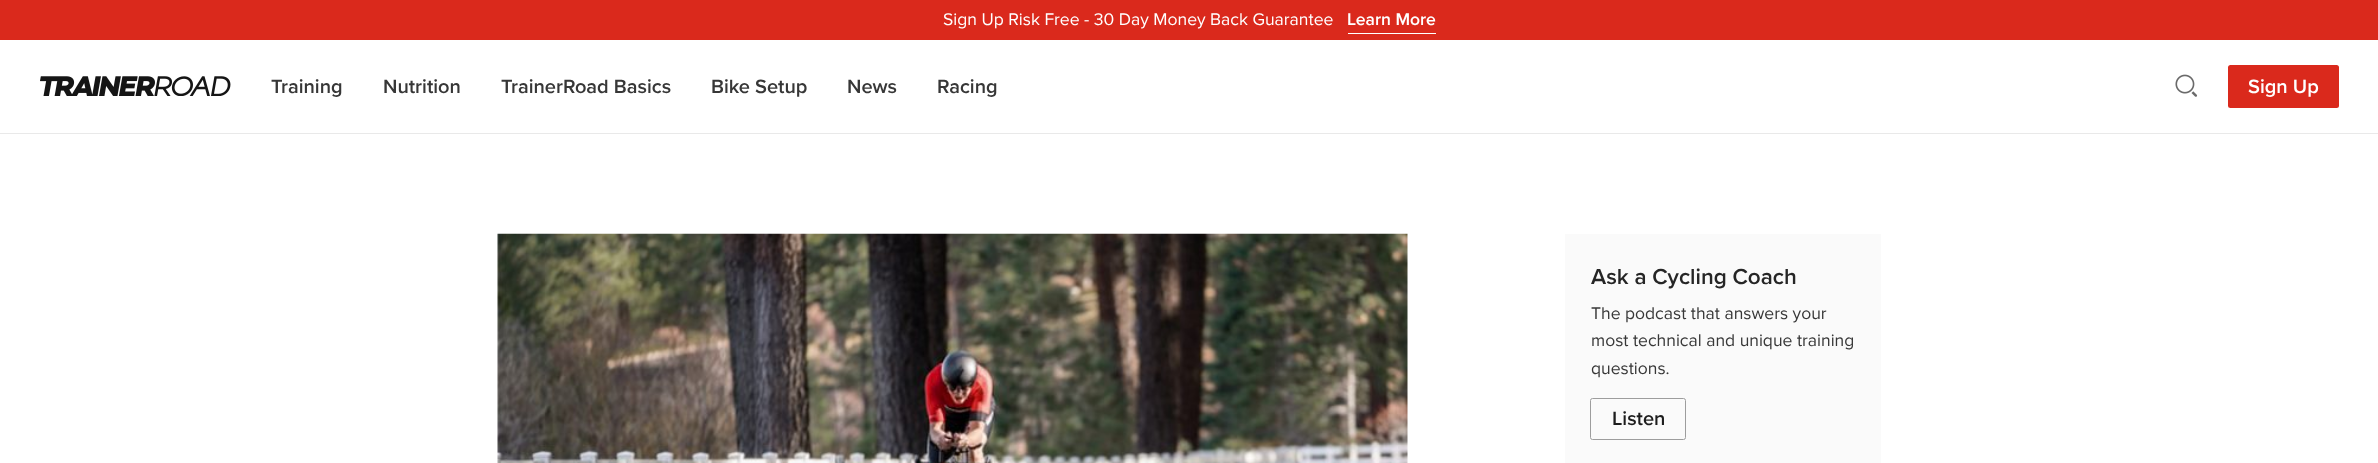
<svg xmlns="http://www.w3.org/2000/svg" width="2378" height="463">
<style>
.a{font:17.5px Proxima Nova;fill:#fff}
.b{font:600 17.5px Proxima Nova;fill:#fff}
.c{font:600 20px Proxima Nova;fill:#373737}
.d{font:600 20px Proxima Nova;fill:#fff}
.e{font:600 22.5px Proxima Nova;fill:#252525}
.f{font:17.5px Proxima Nova;fill:#373737}
.g{font:600 20px Proxima Nova;fill:#1d1d1d}
</style>
<rect width="100%" height="100%" fill="#fff"/>
<path fill="#e9e9e9" d="M0 133h2378v1H0z"/>
<path fill="#da291c" d="M0 0h2378v40H0z"/>
<path fill="#fff" d="M1348 33h88v1H1348z"/>
<image href="1.png" x="40" y="76" width="191" height="20"/>
<image href="2.png" x="2175" y="74" width="23" height="23"/>
<rect fill="#da291c" x="2228" y="65" width="111" height="43" rx="2.5"/>
<image href="3.png" x="497" y="233" width="911" height="230"/>
<path fill="#fafafa" d="M1565 234h316v229H1565z"/>
<rect fill="none" stroke="#9d9d9d" x="1590.5" y="398.5" width="95" height="41" rx="2"/>
<text class="a" x="943" y="25">Sign Up Risk Free - 30 Day Money Back Guarantee</text>
<text class="b" x="1347" y="25">Learn More</text>
<text class="c" x="271" y="93">Training</text>
<text class="c" x="383" y="93">Nutrition</text>
<text class="c" x="501" y="93">TrainerRoad Basics</text>
<text class="c" x="711" y="93">Bike Setup</text>
<text class="c" x="847" y="93">News</text>
<text class="c" x="937" y="93">Racing</text>
<text class="d" x="2248" y="93">Sign Up</text>
<text class="e" x="1591" y="284">Ask a Cycling Coach</text>
<text class="f" x="1591" y="319">The podcast that answers your</text>
<text class="f" x="1591" y="346">most technical and unique training</text>
<text class="f" x="1591" y="374">questions.</text>
<text class="g" x="1612" y="425">Listen</text>
</svg>
